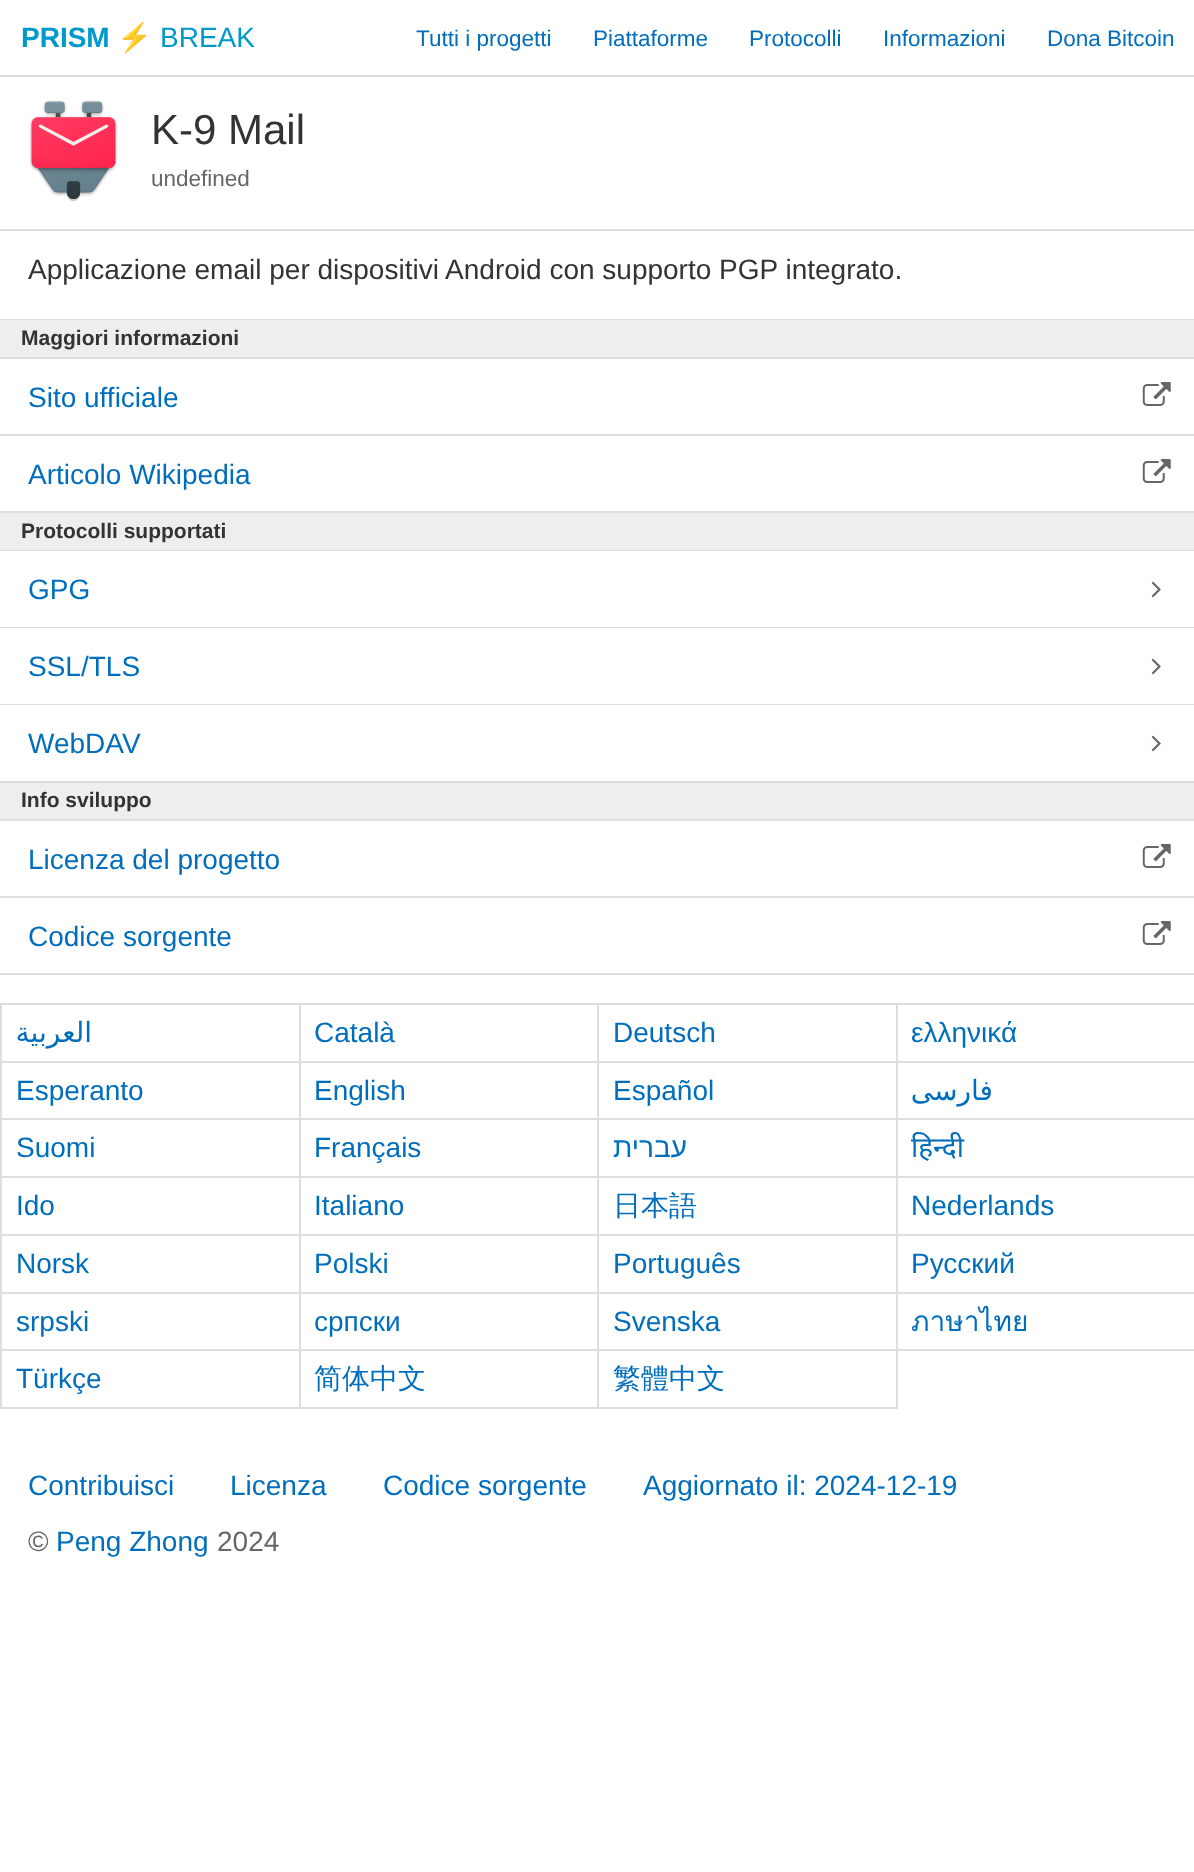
<svg xmlns="http://www.w3.org/2000/svg" width="1194" height="1872">
<style>
.a{font:bold 28px Liberation Sans;fill:#09c}
.b{font:28px Noto Color Emoji;fill:#09c}
.c{font:28px Liberation Sans;fill:#09c}
.d{font:22.5px Liberation Sans;fill:#006ebd}
.e{font:42px Liberation Sans;fill:#333}
.f{font:22.5px Liberation Sans;fill:#666}
.g{font:28px Liberation Sans;fill:#333}
.h{font:bold 21px Liberation Sans;fill:#333}
.i{font:28px Liberation Sans;fill:#006ebd}
.j{font:28px DejaVu Sans;direction:rtl;fill:#006ebd}
.k{font:28px Liberation Sans;direction:rtl;fill:#006ebd}
.l{font:28px Noto Sans;fill:#006ebd}
.m{font:500 28px WenQuanYi Zen Hei;fill:#006ebd}
.n{font:28px Loma;fill:#006ebd}
.o{font:28px Liberation Sans;fill:#666}
</style>
<rect width="100%" height="100%" fill="#fff"/>
<path fill="#ddd" d="M0 75h1194v2H0z"/>
<path fill="#ddd" d="M0 229h1194v2H0z"/>
<image href="1.png" x="29" y="100" width="89" height="102"/>
<path fill="#ddd" d="M0 319h1194v1H0z"/>
<path fill="#eee" d="M0 320h1194v37H0z"/>
<path fill="#ddd" d="M0 357h1194v2H0z"/>
<path fill="#ddd" d="M0 434h1194v2H0z"/>
<image href="2.png" x="1142" y="382" width="29" height="24"/>
<path fill="#ddd" d="M0 511h1194v2H0z"/>
<image href="2.png" x="1142" y="459" width="29" height="24"/>
<path fill="#eee" d="M0 513h1194v37H0z"/>
<path fill="#ddd" d="M0 550h1194v1H0z"/>
<path fill="#ddd" d="M0 627h1194v1H0z"/>
<image href="3.png" x="1151" y="581" width="10" height="17"/>
<path fill="#ddd" d="M0 704h1194v1H0z"/>
<image href="3.png" x="1151" y="658" width="10" height="17"/>
<path fill="#ddd" d="M0 781h1194v2H0z"/>
<image href="3.png" x="1151" y="735" width="10" height="17"/>
<path fill="#eee" d="M0 783h1194v36H0z"/>
<path fill="#ddd" d="M0 819h1194v2H0z"/>
<path fill="#ddd" d="M0 896h1194v2H0z"/>
<image href="2.png" x="1142" y="844" width="29" height="24"/>
<path fill="#ddd" d="M0 973h1194v2H0z"/>
<image href="2.png" x="1142" y="921" width="29" height="24"/>
<path fill="#ddd" d="M0 1003h1194v2H0z"/>
<path fill="#ddd" d="M0 1003h2v406H0z"/>
<path fill="#ddd" d="M299 1005h2v57H299z"/>
<path fill="#ddd" d="M2 1061h299v2H2z"/>
<path fill="#ddd" d="M597 1005h2v57H597z"/>
<path fill="#ddd" d="M301 1061h298v2H301z"/>
<path fill="#ddd" d="M896 1005h2v57H896z"/>
<path fill="#ddd" d="M599 1061h595v2H599z"/>
<path fill="#ddd" d="M299 1062h2v231H299z"/>
<path fill="#ddd" d="M2 1118h299v2H2z"/>
<path fill="#ddd" d="M597 1062h2v231H597z"/>
<path fill="#ddd" d="M301 1118h298v2H301z"/>
<path fill="#ddd" d="M896 1062h2v231H896z"/>
<path fill="#ddd" d="M599 1118h595v2H599z"/>
<path fill="#ddd" d="M2 1176h1192v2H2z"/>
<path fill="#ddd" d="M2 1234h1192v2H2z"/>
<path fill="#ddd" d="M2 1292h1192v2H2z"/>
<path fill="#ddd" d="M299 1293h2v116H299z"/>
<path fill="#ddd" d="M2 1349h299v2H2z"/>
<path fill="#ddd" d="M597 1293h2v116H597z"/>
<path fill="#ddd" d="M301 1349h298v2H301z"/>
<path fill="#ddd" d="M896 1293h2v116H896z"/>
<path fill="#ddd" d="M599 1349h595v2H599z"/>
<path fill="#ddd" d="M2 1407h896v2H2z"/>
<text class="a" x="21" y="47">PRISM</text>
<text class="b" x="117" y="47">⚡</text>
<text class="c" x="160" y="47">BREAK</text>
<text class="d" x="416" y="46">Tutti i progetti</text>
<text class="d" x="593" y="46">Piattaforme</text>
<text class="d" x="749" y="46">Protocolli</text>
<text class="d" x="883" y="46">Informazioni</text>
<text class="d" x="1047" y="46">Dona Bitcoin</text>
<text class="e" x="151" y="144">K-9 Mail</text>
<text class="f" x="151" y="186">undefined</text>
<text class="g" x="28" y="279">Applicazione email per dispositivi Android con supporto PGP integrato.</text>
<text class="h" x="21" y="345">Maggiori informazioni</text>
<text class="i" x="28" y="407">Sito ufficiale</text>
<text class="i" x="28" y="484">Articolo Wikipedia</text>
<text class="h" x="21" y="538">Protocolli supportati</text>
<text class="i" x="28" y="599">GPG</text>
<text class="i" x="28" y="676">SSL/TLS</text>
<text class="i" x="28" y="753">WebDAV</text>
<text class="h" x="21" y="807">Info sviluppo</text>
<text class="i" x="28" y="869">Licenza del progetto</text>
<text class="i" x="28" y="946">Codice sorgente</text>
<text class="j" x="92" y="1042">العربية</text>
<text class="i" x="314" y="1042">Català</text>
<text class="i" x="613" y="1042">Deutsch</text>
<text class="i" x="911" y="1042">ελληνικά</text>
<text class="i" x="16" y="1100">Esperanto</text>
<text class="i" x="314" y="1100">English</text>
<text class="i" x="613" y="1100">Español</text>
<text class="j" x="993" y="1100">فارسی</text>
<text class="i" x="16" y="1157">Suomi</text>
<text class="i" x="314" y="1157">Français</text>
<text class="k" x="687" y="1157">עברית</text>
<text class="l" x="911" y="1157">हिन्दी</text>
<text class="i" x="16" y="1215">Ido</text>
<text class="i" x="314" y="1215">Italiano</text>
<text class="m" x="613" y="1215">日本語</text>
<text class="i" x="911" y="1215">Nederlands</text>
<text class="i" x="16" y="1273">Norsk</text>
<text class="i" x="314" y="1273">Polski</text>
<text class="i" x="613" y="1273">Português</text>
<text class="i" x="911" y="1273">Русский</text>
<text class="i" x="16" y="1331">srpski</text>
<text class="i" x="314" y="1331">српски</text>
<text class="i" x="613" y="1331">Svenska</text>
<text class="n" x="911" y="1331">ภาษาไทย</text>
<text class="i" x="16" y="1388">Türkçe</text>
<text class="m" x="314" y="1388">简体中文</text>
<text class="m" x="613" y="1388">繁體中文</text>
<text class="i" x="28" y="1495">Contribuisci</text>
<text class="i" x="230" y="1495">Licenza</text>
<text class="i" x="383" y="1495">Codice sorgente</text>
<text class="i" x="643" y="1495">Aggiornato il: 2024-12-19</text>
<text class="o" x="28" y="1551">©</text>
<text class="i" x="56" y="1551">Peng Zhong</text>
<text class="o" x="217" y="1551">2024</text>
</svg>
